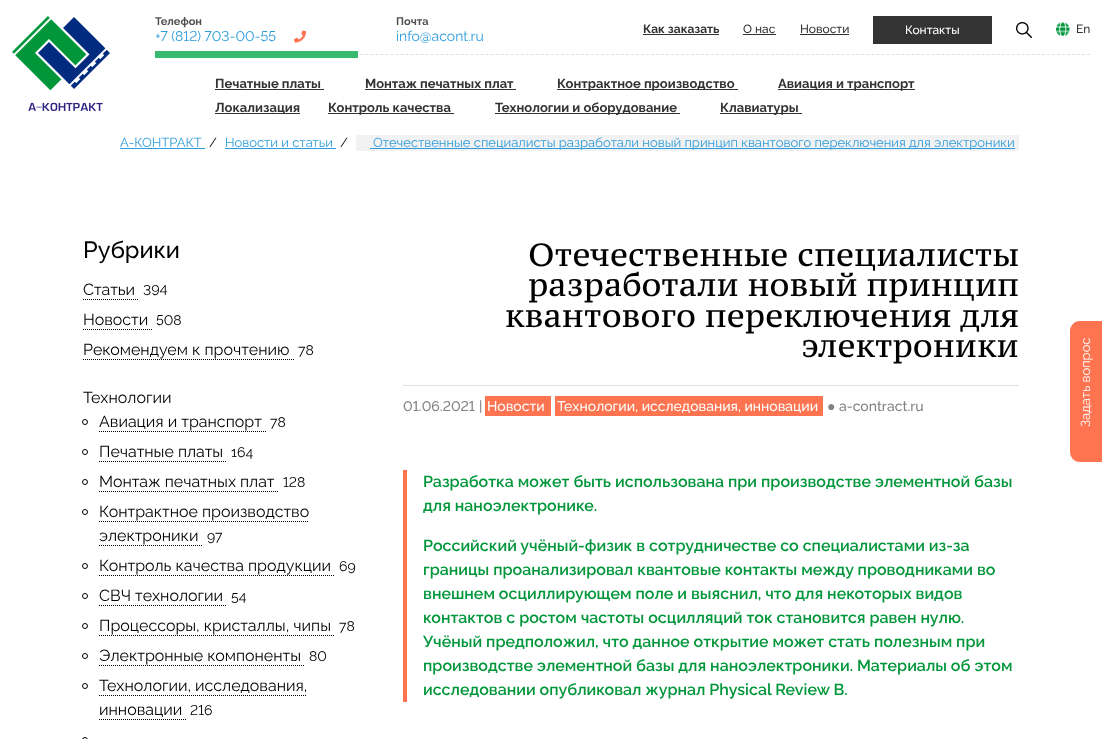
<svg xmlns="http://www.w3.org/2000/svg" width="1102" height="739">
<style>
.a{font:bold 11px Raleway;fill:#4f4f4f}
.b{font:14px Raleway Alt;fill:#2d9cdb}
.c{font:14px Raleway;fill:#2d9cdb}
.d{font:bold 12px Raleway;fill:#333}
.e{font:500 12px Raleway;fill:#333}
.f{font:500 12px Raleway;fill:#fff}
.g{font:bold 13px Raleway;fill:#333}
.h{font:13px Raleway;fill:#2d9cdb}
.i{font:13px Raleway;fill:#000}
.j{font:500 23.5px Raleway;fill:#000}
.k{font:16px Raleway;fill:#000}
.l{font:14px Raleway Alt;fill:#000}
.m{font:14px Raleway;fill:#000}
.n{font:32px PT Serif Caption;fill:#000}
.o{font:500 14px Raleway Alt;fill:#828282}
.p{font:500 14px Raleway;fill:#828282}
.q{font:500 14px Raleway;fill:#fff}
.r{font:14px Liberation Sans;fill:#828282}
.s{font:600 16px Raleway;fill:#009639}
.t{font:13px Raleway;fill:#fff}
</style>
<rect width="100%" height="100%" fill="#fff"/>
<image href="1.png" x="12" y="16" width="98" height="95"/>
<path fill="none" stroke="#e0e0e0" stroke-dasharray="3 2.01" d="M155 54.5h935"/>
<image href="2.png" x="294" y="30" width="12" height="13"/>
<path fill="#333" d="M643 34h76v1H643z"/>
<path fill="#333" d="M743 34h33v1H743z"/>
<path fill="#333" d="M800 34h49v1H800z"/>
<path fill="#333" d="M873 16h119v28H873z"/>
<image href="3.png" x="1016" y="22" width="16" height="16"/>
<image href="4.png" x="1056" y="22" width="14" height="14"/>
<path fill="#3ab971" d="M155 51h203v7H155z"/>
<path fill="#333" d="M215 89h109v1H215z"/>
<path fill="#333" d="M365 89h151v1H365z"/>
<path fill="#333" d="M557 89h181v1H557z"/>
<path fill="#333" d="M778 89h137v1H778z"/>
<path fill="#333" d="M215 113h85v1H215z"/>
<path fill="#333" d="M328 113h126v1H328z"/>
<path fill="#333" d="M495 113h185v1H495z"/>
<path fill="#333" d="M720 113h82v1H720z"/>
<path fill="#2d9cdb" d="M120 148h85v1H120z"/>
<path fill="#2d9cdb" d="M225 148h111v1H225z"/>
<path fill="#f2f2f2" d="M356 135h663v16H356z"/>
<path fill="#2d9cdb" d="M370 148h645v1H370z"/>
<path fill="none" stroke="#000" stroke-dasharray="1 1" d="M83 299.5h56"/>
<path fill="none" stroke="#000" stroke-dasharray="1 1" d="M83 329.5h69"/>
<path fill="none" stroke="#000" stroke-dasharray="1 1" d="M83 359.5h211"/>
<circle fill="none" stroke="#000" cx="85" cy="422" r="2.5"/>
<path fill="none" stroke="#000" stroke-dasharray="1 1" d="M99 431.5h167"/>
<circle fill="none" stroke="#000" cx="85" cy="452" r="2.5"/>
<path fill="none" stroke="#000" stroke-dasharray="1 1" d="M99 461.5h128"/>
<circle fill="none" stroke="#000" cx="85" cy="482" r="2.5"/>
<path fill="none" stroke="#000" stroke-dasharray="1 1" d="M99 491.5h180"/>
<circle fill="none" stroke="#000" cx="85" cy="512" r="2.5"/>
<path fill="none" stroke="#000" stroke-dasharray="1 1" d="M99 521.5h210"/>
<path fill="none" stroke="#000" stroke-dasharray="1 1" d="M99 545.5h104"/>
<circle fill="none" stroke="#000" cx="85" cy="566" r="2.5"/>
<path fill="none" stroke="#000" stroke-dasharray="1 1" d="M99 575.5h236"/>
<circle fill="none" stroke="#000" cx="85" cy="596" r="2.5"/>
<path fill="none" stroke="#000" stroke-dasharray="1 1" d="M99 605.5h128"/>
<circle fill="none" stroke="#000" cx="85" cy="626" r="2.5"/>
<path fill="none" stroke="#000" stroke-dasharray="1 1" d="M99 635.5h236"/>
<circle fill="none" stroke="#000" cx="85" cy="656" r="2.5"/>
<path fill="none" stroke="#000" stroke-dasharray="1 1" d="M99 665.5h206"/>
<circle fill="none" stroke="#000" cx="85" cy="686" r="2.5"/>
<path fill="none" stroke="#000" stroke-dasharray="1 1" d="M99 695.5h208"/>
<path fill="none" stroke="#000" stroke-dasharray="1 1" d="M99 719.5h87"/>
<circle fill="none" stroke="#000" cx="85" cy="740" r="2.5"/>
<path fill="#e0e0e0" d="M403 385h616v1H403z"/>
<path fill="#ff7450" d="M485 396h66v20H485z"/>
<path fill="#ff7450" d="M555 396h268v20H555z"/>
<path fill="#ff7450" d="M403 470h4v232H403z"/>
<path fill="#ff7450" d="M1070 452v-121c0-5 4-10 10-10h22v141h-22c-6 0-10-5-10-10z"/>
<text class="a" x="155" y="25">Телефон</text>
<text class="b" x="155" y="41">+7 (812) 703-00-55</text>
<text class="a" x="396" y="25">Почта</text>
<text class="c" x="396" y="41">info@acont.ru</text>
<text class="d" x="643" y="33">Как заказать</text>
<text class="e" x="743" y="33">О нас</text>
<text class="e" x="800" y="33">Новости</text>
<text class="f" x="905" y="34">Контакты</text>
<text class="e" x="1076" y="33">En</text>
<text class="g" x="215" y="88">Печатные платы</text>
<text class="g" x="365" y="88">Монтаж печатных плат</text>
<text class="g" x="557" y="88">Контрактное производство</text>
<text class="g" x="778" y="88">Авиация и транспорт</text>
<text class="g" x="215" y="112">Локализация</text>
<text class="g" x="328" y="112">Контроль качества</text>
<text class="g" x="495" y="112">Технологии и оборудование</text>
<text class="g" x="720" y="112">Клавиатуры</text>
<text class="h" x="120" y="147">А-КОНТРАКТ</text>
<text class="i" x="209" y="147">/</text>
<text class="h" x="225" y="147">Новости и статьи</text>
<text class="i" x="340" y="147">/</text>
<text class="h" x="373" y="147">Отечественные специалисты разработали новый принцип квантового переключения для электроники</text>
<text class="j" x="83" y="258">Рубрики</text>
<text class="k" x="83" y="295">Статьи</text>
<text class="l" x="143" y="295">394</text>
<text class="k" x="83" y="325">Новости</text>
<text class="l" x="156" y="325">508</text>
<text class="k" x="83" y="355">Рекомендуем к прочтению</text>
<text class="m" x="298" y="355">78</text>
<text class="k" x="83" y="403">Технологии</text>
<text class="k" x="99" y="427">Авиация и транспорт</text>
<text class="m" x="270" y="427">78</text>
<text class="k" x="99" y="457">Печатные платы</text>
<text class="m" x="231" y="457">164</text>
<text class="k" x="99" y="487">Монтаж печатных плат</text>
<text class="l" x="283" y="487">128</text>
<text class="k" x="99" y="517">Контрактное производство</text>
<text class="k" x="99" y="541">электроники</text>
<text class="m" x="207" y="541">97</text>
<text class="k" x="99" y="571">Контроль качества продукции</text>
<text class="m" x="339" y="571">69</text>
<text class="k" x="99" y="601">СВЧ технологии</text>
<text class="m" x="231" y="601">54</text>
<text class="k" x="99" y="631">Процессоры, кристаллы, чипы</text>
<text class="m" x="339" y="631">78</text>
<text class="k" x="99" y="661">Электронные компоненты</text>
<text class="l" x="309" y="661">80</text>
<text class="k" x="99" y="691">Технологии, исследования,</text>
<text class="k" x="99" y="715">инновации</text>
<text class="l" x="190" y="715">216</text>
<text class="n" x="528" y="266">Отечественные специалисты</text>
<text class="n" x="528" y="296">разработали новый принцип</text>
<text class="n" x="505" y="327">квантового переключения для</text>
<text class="n" x="801" y="357">электроники</text>
<text class="o" x="403" y="411">01.06.2021</text>
<text class="p" x="479" y="411">|</text>
<text class="q" x="487" y="411">Новости</text>
<text class="q" x="557" y="411">Технологии, исследования, инновации</text>
<text class="r" x="827" y="411">●</text>
<text class="p" x="839" y="411">a-contract.ru</text>
<text class="s" x="423" y="487">Разработка может быть использована при производстве элементной базы</text>
<text class="s" x="423" y="511">для наноэлектронике.</text>
<text class="s" x="423" y="551">Российский учёный-физик в сотрудничестве со специалистами из-за</text>
<text class="s" x="423" y="575">границы проанализировал квантовые контакты между проводниками во</text>
<text class="s" x="423" y="599">внешнем осциллирующем поле и выяснил, что для некоторых видов</text>
<text class="s" x="423" y="623">контактов с ростом частоты осцилляций ток становится равен нулю.</text>
<text class="s" x="423" y="647">Учёный предположил, что данное открытие может стать полезным при</text>
<text class="s" x="423" y="671">производстве элементной базы для наноэлектроники. Материалы об этом</text>
<text class="s" x="423" y="695">исследовании опубликовал журнал Physical Review B.</text>
<text class="t" x="1090" y="427" transform="rotate(-90 1090 427)">Задать вопрос</text>
</svg>
